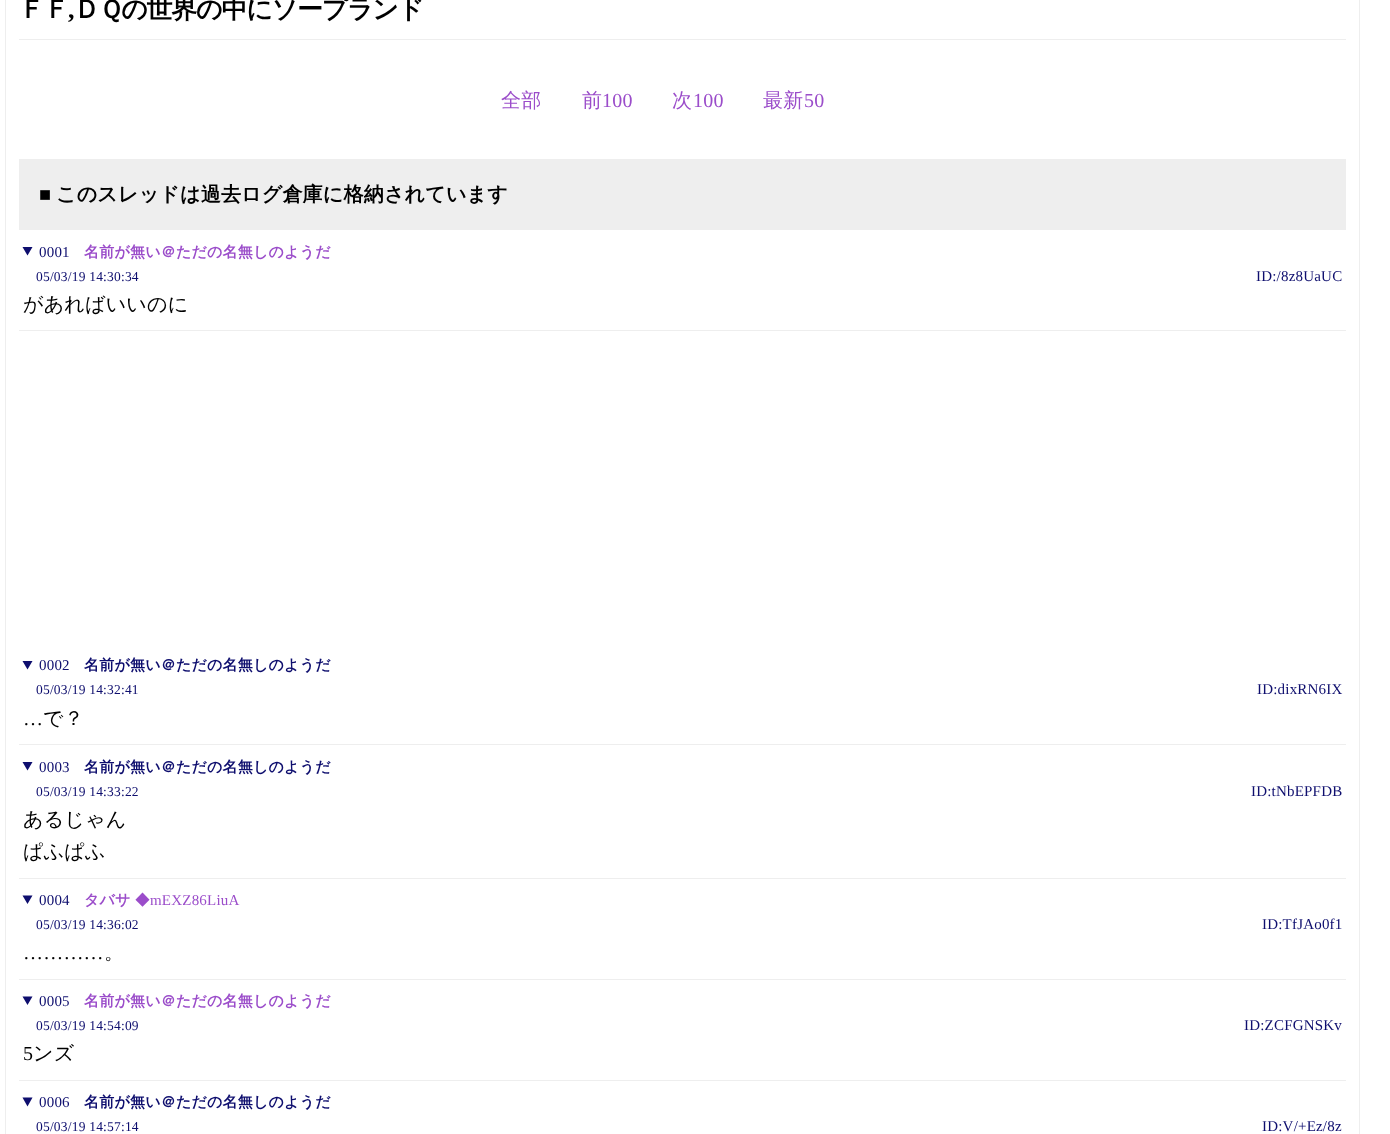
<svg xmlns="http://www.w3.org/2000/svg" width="1390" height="1134">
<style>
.a{font:bold 26px WenQuanYi Zen Hei;letter-spacing:-1.25px;fill:#000}
.b{font:bold 26px Liberation Serif;letter-spacing:-1.25px;fill:#000}
.c{font:500 20px WenQuanYi Zen Hei;letter-spacing:0.2px;fill:#9b4dca}
.d{font:20px Liberation Serif;letter-spacing:0.2px;fill:#9b4dca}
.e{font:bold 20px Liberation Serif;letter-spacing:0.2px;fill:#000}
.f{font:bold 20px WenQuanYi Zen Hei;letter-spacing:0.2px;fill:#000}
.g{font:15px Liberation Serif;letter-spacing:0.2px;fill:#0e0e6e}
.h{font:bold 15px WenQuanYi Zen Hei;letter-spacing:0.2px;fill:#9b4dca}
.i{font:13.5px Liberation Serif;letter-spacing:0.2px;fill:#0e0e6e}
.j{font:500 20px WenQuanYi Zen Hei;letter-spacing:0.2px;fill:#000}
.k{font:bold 15px WenQuanYi Zen Hei;letter-spacing:0.2px;fill:#0e0e6e}
.l{font:20px Liberation Serif;letter-spacing:0.2px;fill:#000}
.m{font:500 15px WenQuanYi Zen Hei;letter-spacing:0.2px;fill:#9b4dca}
.n{font:15px Liberation Serif;letter-spacing:0.2px;fill:#9b4dca}
</style>
<rect width="100%" height="100%" fill="#fff"/>
<path fill="none" stroke="#eee" d="M5.5 -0.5h1354v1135H5.5z"/>
<path fill="#eee" d="M19 39h1327v1H19z"/>
<path fill="#eee" d="M19 159h1327v71H19z"/>
<path fill="#eee" d="M19 330h1327v1H19z"/>
<path fill="#0e0e6e" d="M22.5 247h10l-5 8.5z"/>
<path fill="#eee" d="M19 744h1327v1H19z"/>
<path fill="#0e0e6e" d="M22.5 661h10l-5 8.5z"/>
<path fill="#eee" d="M19 878h1327v1H19z"/>
<path fill="#0e0e6e" d="M22.5 762h10l-5 8.5z"/>
<path fill="#eee" d="M19 979h1327v1H19z"/>
<path fill="#0e0e6e" d="M22.5 895.5h10l-5 8.5z"/>
<path fill="#eee" d="M19 1080h1327v1H19z"/>
<path fill="#0e0e6e" d="M22.5 996.5h10l-5 8.5z"/>
<path fill="#0e0e6e" d="M22.5 1097.5h10l-5 9z"/>
<text class="a" x="19" y="18">ＦＦ</text>
<text class="b" x="68" y="18">,</text>
<text class="a" x="74" y="18">ＤＱの世界の中にソープランド</text>
<text class="c" x="501" y="107">全部</text>
<text class="c" x="582" y="107">前</text>
<text class="d" x="602" y="107">100</text>
<text class="c" x="672" y="107">次</text>
<text class="d" x="693" y="107">100</text>
<text class="c" x="763" y="107">最新</text>
<text class="d" x="804" y="107">50</text>
<text class="e" x="39" y="201">■</text>
<text class="f" x="56" y="201">このスレッドは過去ログ倉庫に格納されています</text>
<text class="g" x="39" y="257">0001</text>
<text class="h" x="84" y="257">名前が無い＠ただの名無しのようだ</text>
<text class="i" x="36" y="281">05/03/19 14:30:34</text>
<text class="g" x="1256" y="281">ID:/8z8UaUC</text>
<text class="j" x="23" y="311">があればいいのに</text>
<text class="g" x="39" y="670">0002</text>
<text class="k" x="84" y="670">名前が無い＠ただの名無しのようだ</text>
<text class="i" x="36" y="694">05/03/19 14:32:41</text>
<text class="g" x="1257" y="694">ID:dixRN6IX</text>
<text class="l" x="23" y="725">…</text>
<text class="j" x="43" y="725">で？</text>
<text class="g" x="39" y="772">0003</text>
<text class="k" x="84" y="772">名前が無い＠ただの名無しのようだ</text>
<text class="i" x="36" y="796">05/03/19 14:33:22</text>
<text class="g" x="1251" y="796">ID:tNbEPFDB</text>
<text class="j" x="23" y="826">あるじゃん</text>
<text class="j" x="23" y="858">ぱふぱふ</text>
<text class="g" x="39" y="905">0004</text>
<text class="h" x="84" y="905">タバサ</text>
<text class="m" x="135" y="905">◆</text>
<text class="n" x="150" y="905">mEXZ86LiuA</text>
<text class="i" x="36" y="929">05/03/19 14:36:02</text>
<text class="g" x="1262" y="929">ID:TfJAo0f1</text>
<text class="l" x="23" y="959">…………</text>
<text class="j" x="104" y="959">。</text>
<text class="g" x="39" y="1006">0005</text>
<text class="h" x="84" y="1006">名前が無い＠ただの名無しのようだ</text>
<text class="i" x="36" y="1030">05/03/19 14:54:09</text>
<text class="g" x="1244" y="1030">ID:ZCFGNSKv</text>
<text class="l" x="23" y="1060">5</text>
<text class="j" x="33" y="1060">ンズ</text>
<text class="g" x="39" y="1107">0006</text>
<text class="k" x="84" y="1107">名前が無い＠ただの名無しのようだ</text>
<text class="i" x="36" y="1131">05/03/19 14:57:14</text>
<text class="g" x="1262" y="1131">ID:V/+Ez/8z</text>
</svg>
